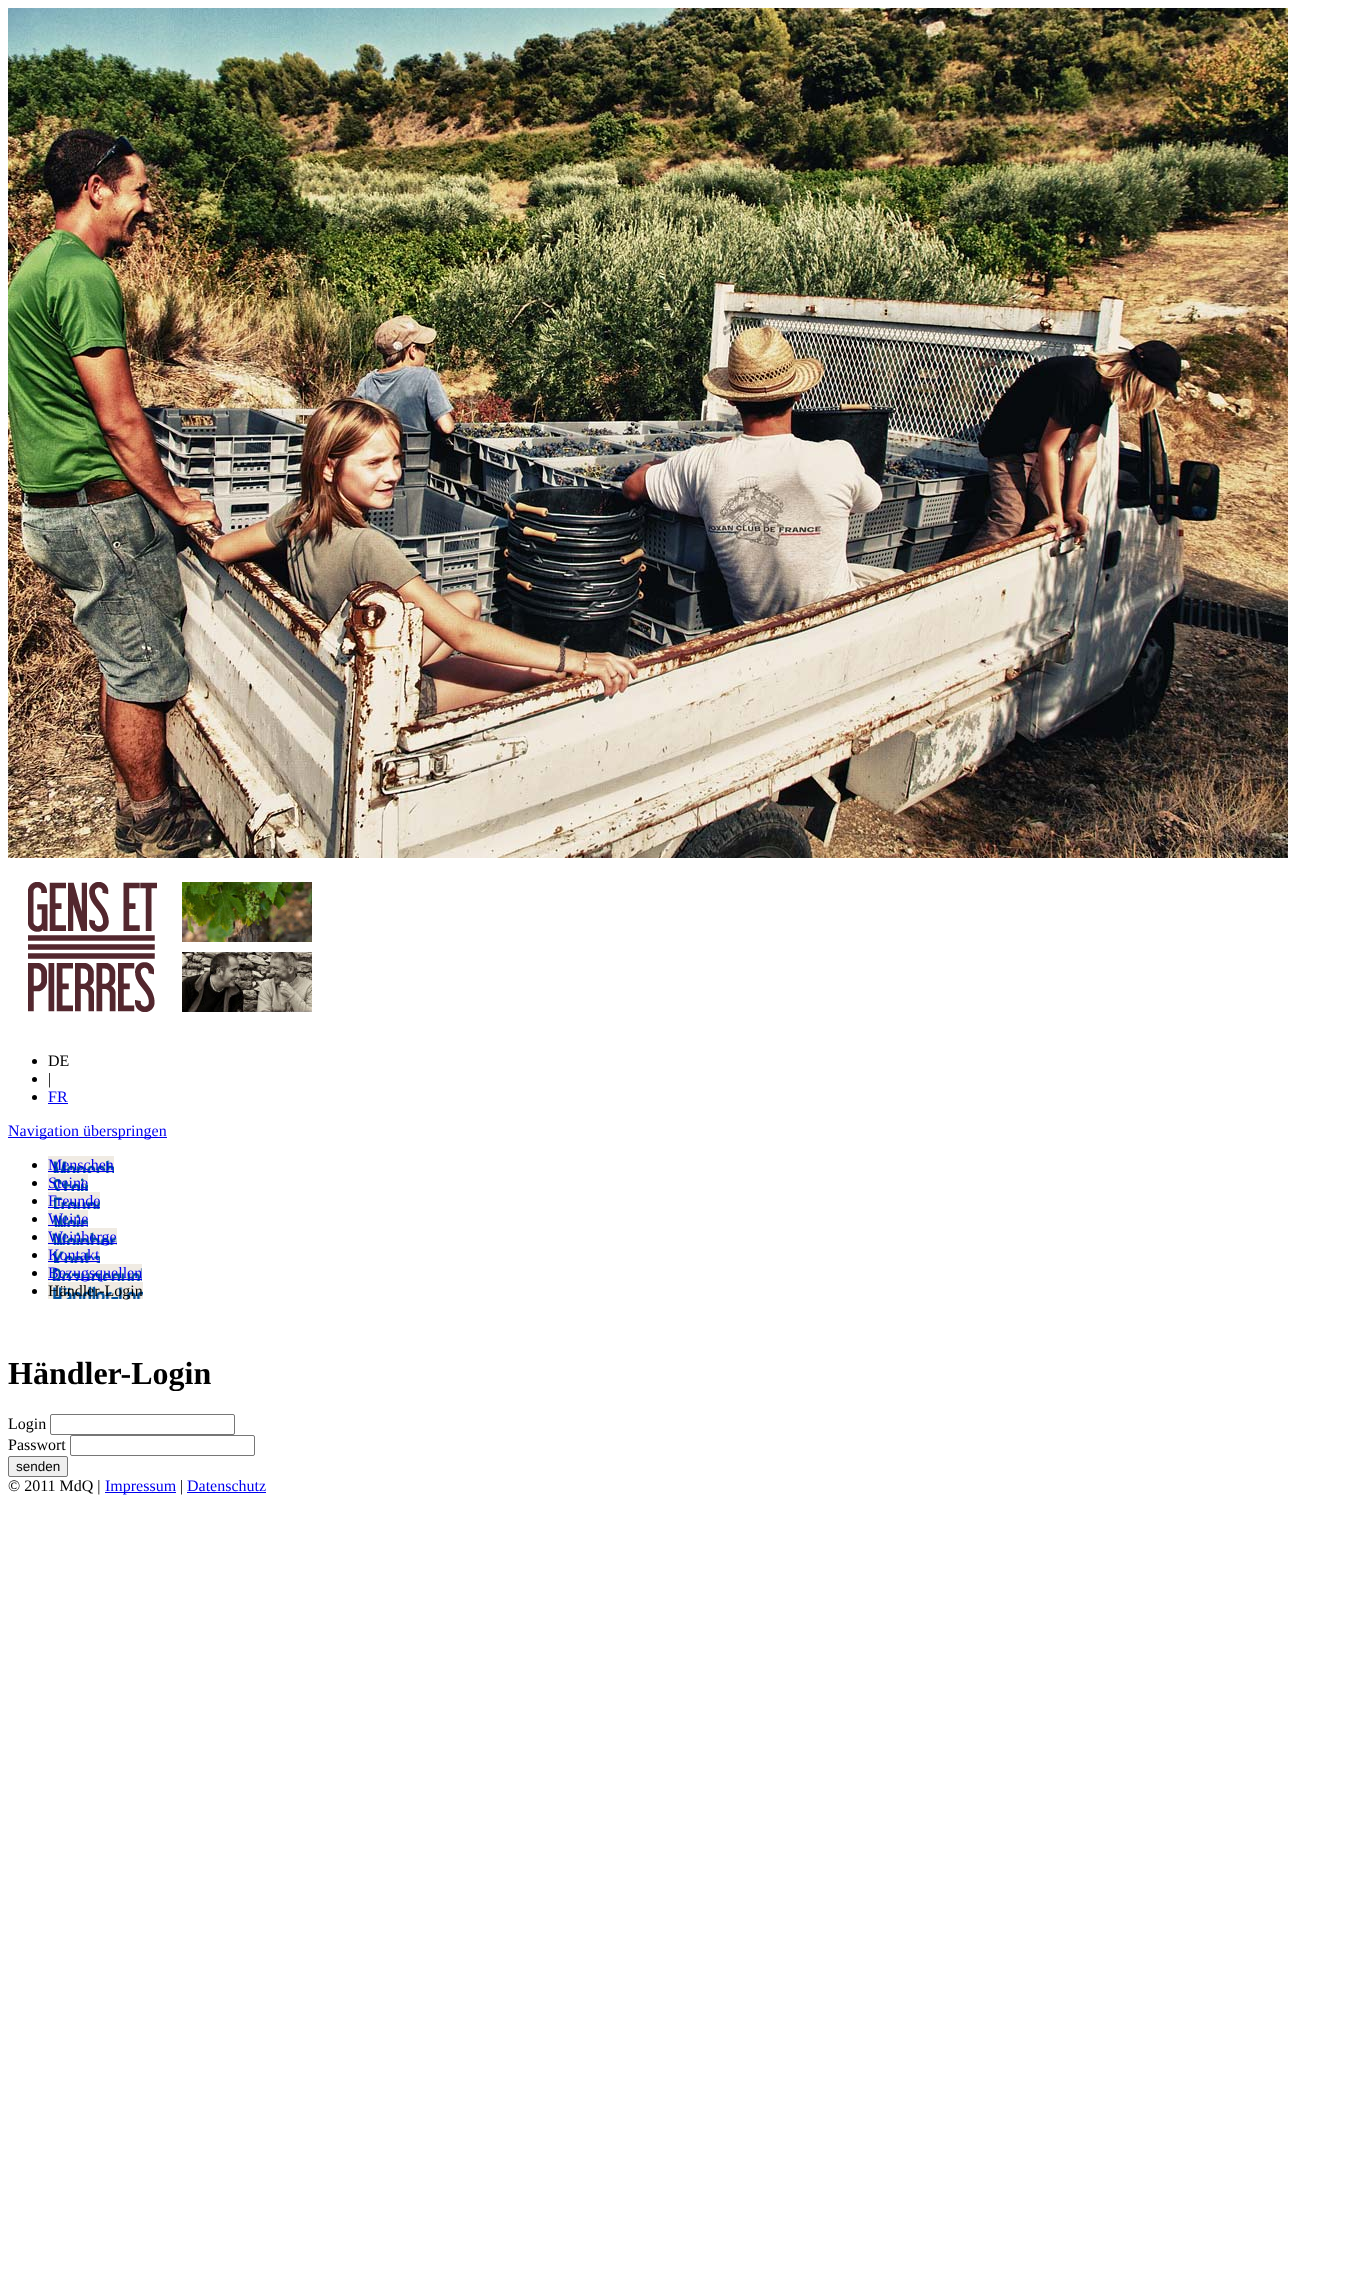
<svg xmlns="http://www.w3.org/2000/svg" width="1352" height="2296">
<style>
.a{font:16px Liberation Serif;fill:#000}
.b{font:16px Liberation Serif;fill:#00e}
.c{font:bold 32px Liberation Serif;fill:#000}
.d{font:13.5px Liberation Sans;fill:#000}
</style>
<rect width="100%" height="100%" fill="#fff"/>
<image href="1.png" x="8" y="8" width="1280" height="850"/>
<image href="2.png" x="28" y="882" width="129" height="130"/>
<image href="3.png" x="182" y="881" width="130" height="131"/>
<circle fill="#000" cx="34.5" cy="1061.5" r="2.5"/>
<circle fill="#000" cx="34.5" cy="1079.5" r="2.5"/>
<circle fill="#000" cx="34.5" cy="1097.5" r="2.5"/>
<path fill="#00e" d="M48 1103h20v1H48z"/>
<path fill="#00e" d="M8 1137h159v1H8z"/>
<image href="4.png" x="48" y="1156" width="66" height="17"/>
<circle fill="#000" cx="34.5" cy="1165.5" r="2.5"/>
<path fill="#00e" d="M48 1171h66v1H48z"/>
<image href="5.png" x="48" y="1174" width="40" height="17"/>
<circle fill="#000" cx="34.5" cy="1183.5" r="2.5"/>
<path fill="#00e" d="M48 1189h40v1H48z"/>
<image href="6.png" x="48" y="1192" width="52" height="17"/>
<circle fill="#000" cx="34.5" cy="1201.5" r="2.5"/>
<path fill="#00e" d="M48 1207h52v1H48z"/>
<image href="7.png" x="48" y="1210" width="40" height="17"/>
<circle fill="#000" cx="34.5" cy="1219.5" r="2.5"/>
<path fill="#00e" d="M48 1225h40v1H48z"/>
<image href="8.png" x="48" y="1228" width="69" height="17"/>
<circle fill="#000" cx="34.5" cy="1237.5" r="2.5"/>
<path fill="#00e" d="M48 1243h69v1H48z"/>
<image href="9.png" x="48" y="1246" width="52" height="17"/>
<circle fill="#000" cx="34.5" cy="1255.5" r="2.5"/>
<path fill="#00e" d="M48 1261h52v1H48z"/>
<image href="10.png" x="48" y="1264" width="94" height="17"/>
<circle fill="#000" cx="34.5" cy="1273.5" r="2.5"/>
<path fill="#00e" d="M48 1279h94v1H48z"/>
<image href="11.png" x="48" y="1282" width="95" height="17"/>
<circle fill="#000" cx="34.5" cy="1291.5" r="2.5"/>
<rect fill="none" stroke="#767676" x="50.5" y="1414.5" width="184" height="20" rx="1.5"/>
<rect fill="none" stroke="#767676" x="70.5" y="1435.5" width="184" height="20" rx="1.5"/>
<rect fill="#efefef" stroke="#767676" x="8.5" y="1456.5" width="59" height="20" rx="1.5"/>
<path fill="#00e" d="M105 1492h71v1H105z"/>
<path fill="#00e" d="M187 1492h79v1H187z"/>
<text class="a" x="48" y="1066">DE</text>
<text class="a" x="48" y="1084">|</text>
<text class="b" x="48" y="1102">FR</text>
<text class="b" x="8" y="1136">Navigation überspringen</text>
<text class="b" x="48" y="1170">Menschen</text>
<text class="b" x="48" y="1188">Steine</text>
<text class="b" x="48" y="1206">Freunde</text>
<text class="b" x="48" y="1224">Weine</text>
<text class="b" x="48" y="1242">Weinberge</text>
<text class="b" x="48" y="1260">Kontakt</text>
<text class="b" x="48" y="1278">Bezugsquellen</text>
<text class="a" x="48" y="1296">Händler-Login</text>
<text class="c" x="8" y="1384">Händler-Login</text>
<text class="a" x="8" y="1429">Login</text>
<text class="a" x="8" y="1450">Passwort</text>
<text class="d" x="16" y="1471">senden</text>
<text class="a" x="8" y="1491">© 2011 MdQ |</text>
<text class="b" x="105" y="1491">Impressum</text>
<text class="a" x="180" y="1491">|</text>
<text class="b" x="187" y="1491">Datenschutz</text>
</svg>
